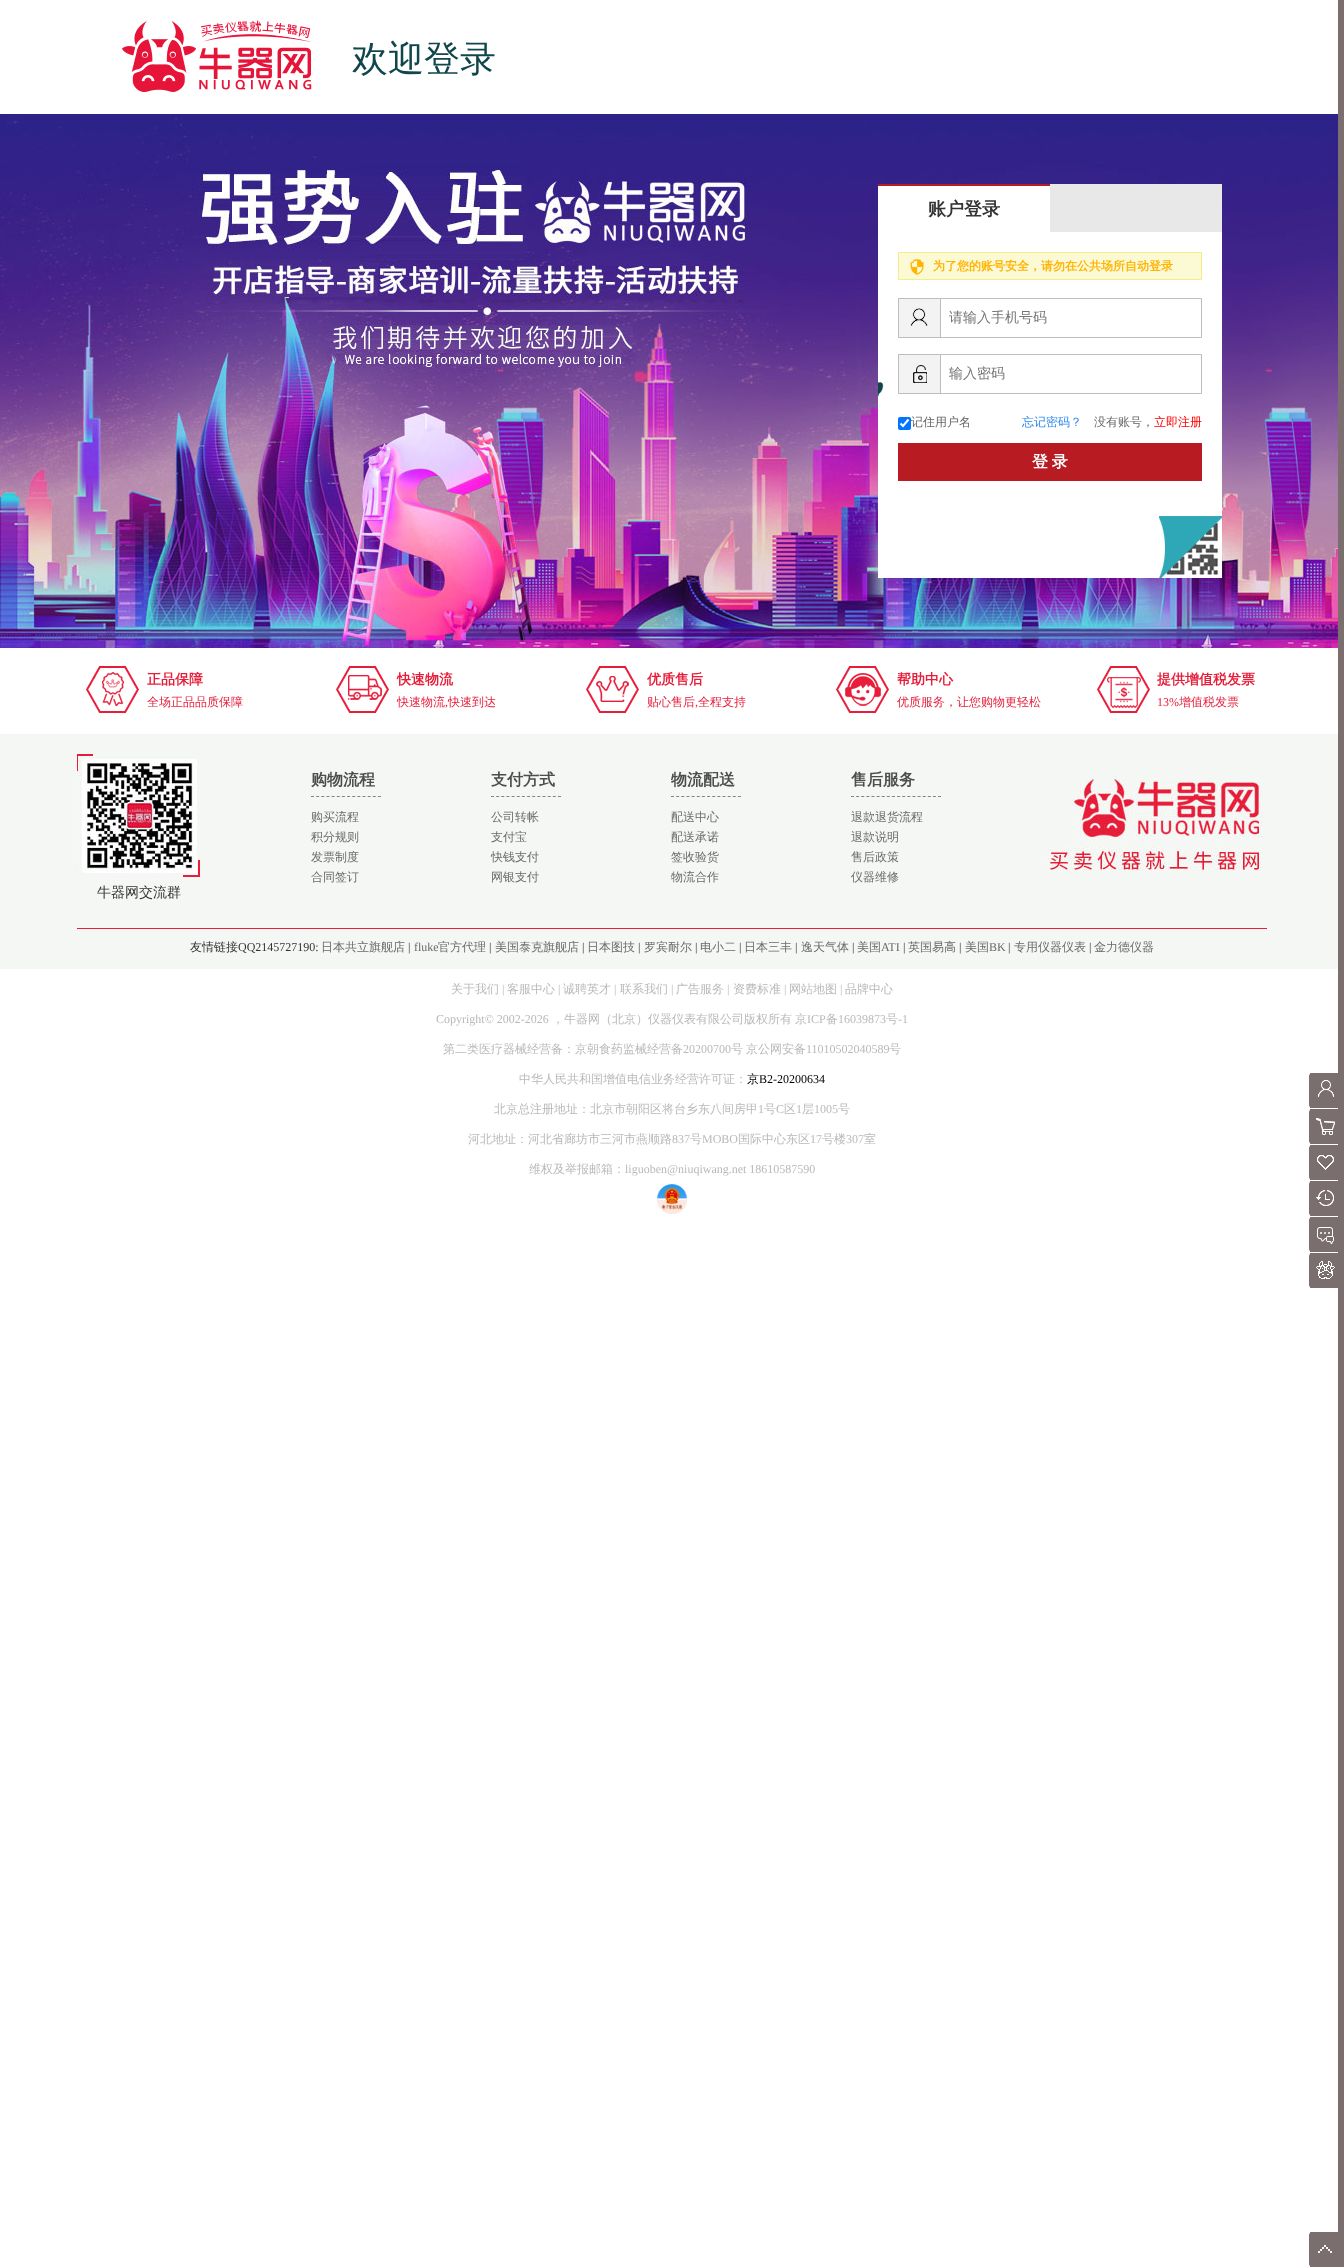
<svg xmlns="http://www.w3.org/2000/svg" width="1344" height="2267">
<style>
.a{font:500 36px WenQuanYi Zen Hei;fill:#10464c}
.b{font:bold 18px WenQuanYi Zen Hei;fill:#333}
.c{font:bold 12px WenQuanYi Zen Hei;fill:#ffb400}
.d{font:500 14px WenQuanYi Zen Hei;fill:#757575}
.e{font:500 12px WenQuanYi Zen Hei;fill:#666}
.f{font:500 12px WenQuanYi Zen Hei;fill:#2f89ef}
.g{font:500 12px WenQuanYi Zen Hei;fill:#f00}
.h{font:bold 16px WenQuanYi Zen Hei;fill:#fff}
.i{font:bold 14px WenQuanYi Zen Hei;fill:#e61e3a}
.j{font:500 12px WenQuanYi Zen Hei;fill:#e61e3a}
.k{font:12px Liberation Serif;fill:#e61e3a}
.l{font:bold 16px WenQuanYi Zen Hei;fill:#4d4d4d}
.m{font:500 12px WenQuanYi Zen Hei;fill:#6a6c69}
.n{font:500 14px WenQuanYi Zen Hei;fill:#333}
.o{font:500 12px WenQuanYi Zen Hei;fill:#333}
.p{font:12px Liberation Serif;fill:#333}
.q{font:12px Liberation Serif;fill:#6a6c69}
.r{font:500 12px WenQuanYi Zen Hei;fill:#b9b9b9}
.s{font:12px Liberation Serif;fill:#b9b9b9}
.t{font:500 12px WenQuanYi Zen Hei;fill:#000}
.u{font:12px Liberation Serif;fill:#000}
</style>
<rect width="100%" height="100%" fill="#fff"/>
<image href="1.png" x="122" y="20" width="190" height="72"/>
<path fill="#7a6e6e" d="M1338 0h6v2232H1338z"/>
<path fill="#7a6e6e" d="M1312 1073h32v35h-32c-1.5 0-3-1.5-3-3v-29c0-1.5 1.5-3 3-3z"/>
<path fill="#7a6e6e" d="M1310 1073h2v35H1310z"/>
<image href="2.png" x="1318" y="1080" width="16" height="17"/>
<path fill="#7a6e6e" d="M1312 1109h32v35h-32c-1.5 0-3-1.5-3-3v-29c0-1.5 1.5-3 3-3z"/>
<path fill="#7a6e6e" d="M1310 1109h2v35H1310z"/>
<image href="3.png" x="1316" y="1118" width="19" height="17"/>
<path fill="#7a6e6e" d="M1312 1145h32v35h-32c-1.5 0-3-1.5-3-3v-29c0-1.5 1.5-3 3-3z"/>
<path fill="#7a6e6e" d="M1310 1145h2v35H1310z"/>
<image href="4.png" x="1317" y="1155" width="17" height="15"/>
<path fill="#7a6e6e" d="M1312 1181h32v35h-32c-1.5 0-3-1.5-3-3v-29c0-1.5 1.5-3 3-3z"/>
<path fill="#7a6e6e" d="M1310 1181h2v35H1310z"/>
<image href="5.png" x="1316" y="1190" width="18" height="16"/>
<path fill="#7a6e6e" d="M1312 1217h32v35h-32c-1.5 0-3-1.5-3-3v-29c0-1.5 1.5-3 3-3z"/>
<path fill="#7a6e6e" d="M1310 1217h2v35H1310z"/>
<image href="6.png" x="1317" y="1227" width="17" height="18"/>
<path fill="#7a6e6e" d="M1312 1253h32v35h-32c-1.5 0-3-1.5-3-3v-29c0-1.5 1.5-3 3-3z"/>
<path fill="#7a6e6e" d="M1310 1253h2v35H1310z"/>
<image href="7.png" x="1316" y="1261" width="19" height="18"/>
<path fill="#7a6e6e" d="M1312 2232h32v35h-32c-1.5 0-3-1.5-3-3v-29c0-1.5 1.5-3 3-3z"/>
<path fill="#7a6e6e" d="M1310 2232h2v35H1310z"/>
<image href="8.png" x="1318" y="2245" width="14" height="8"/>
<image href="9.png" x="0" y="114" width="1338" height="534"/>
<path fill="#fff" d="M878 232h344v346H878z"/>
<path fill="#e8e8e8" d="M1050 184h172v48H1050z"/>
<path fill="#fff" d="M878 186h172v46H878z"/>
<path fill="#b81c22" d="M878 184h172v2H878z"/>
<path fill="#fcf9d5" d="M899 253h302v26H899z"/>
<image href="10.png" x="910" y="259" width="14" height="16"/>
<path fill="none" stroke="#f5ed87" d="M898.5 252.5h303v27H898.5z"/>
<image href="11.png" x="878" y="382" width="6" height="14"/>
<image href="12.png" x="899" y="299" width="42" height="38"/>
<path fill="none" stroke="#bdbdbd" d="M898.5 298.5h303v39H898.5z"/>
<image href="13.png" x="899" y="355" width="42" height="38"/>
<path fill="none" stroke="#bdbdbd" d="M898.5 354.5h303v39H898.5z"/>
<rect fill="#0075ff" x="898" y="417" width="13" height="13" rx="2"/>
<path fill="none" stroke="#fff" stroke-width="2.1" d="M900.5 423.5l2.5 2.5l5.5-6.5"/>
<path fill="#b81c22" d="M898 443h304v38H898z"/>
<image href="14.png" x="1159" y="516" width="63" height="62"/>
<image href="15.png" x="86" y="666" width="53" height="47"/>
<image href="16.png" x="336" y="666" width="53" height="47"/>
<image href="17.png" x="586" y="666" width="53" height="47"/>
<image href="18.png" x="836" y="666" width="53" height="47"/>
<image href="19.png" x="1097" y="666" width="53" height="47"/>
<path fill="#f5f7f4" d="M0 734h1338v235H0z"/>
<path fill="none" stroke="#838582" stroke-dasharray="3 2.15" d="M311 796.5h70"/>
<path fill="none" stroke="#838582" stroke-dasharray="3 2.15" d="M491 796.5h70"/>
<path fill="none" stroke="#838582" stroke-dasharray="3 2.15" d="M671 796.5h70"/>
<path fill="none" stroke="#838582" stroke-dasharray="3 2.12" d="M851 796.5h90"/>
<image href="20.png" x="1046" y="774" width="216" height="96"/>
<image href="21.png" x="77" y="754" width="124" height="124"/>
<path fill="#e71d39" d="M77 928h1190v1H77z"/>
<image href="22.png" x="657" y="1184" width="30" height="30"/>
<text class="a" x="352" y="71">欢迎登录</text>
<text class="b" x="928" y="215">账户登录</text>
<text class="c" x="933" y="270">为了您的账号安全，请勿在公共场所自动登录</text>
<text class="d" x="949" y="322">请输入手机号码</text>
<text class="d" x="949" y="378">输入密码</text>
<text class="e" x="911" y="426">记住用户名</text>
<text class="f" x="1022" y="426">忘记密码？</text>
<text class="e" x="1094" y="426">没有账号，</text>
<text class="g" x="1154" y="426">立即注册</text>
<text class="h" x="1032" y="467" word-spacing="-1">登 录</text>
<text class="i" x="147" y="684">正品保障</text>
<text class="j" x="147" y="706">全场正品品质保障</text>
<text class="i" x="397" y="684">快速物流</text>
<text class="j" x="397" y="706">快速物流</text>
<text class="k" x="445" y="706">,</text>
<text class="j" x="448" y="706">快速到达</text>
<text class="i" x="647" y="684">优质售后</text>
<text class="j" x="647" y="706">贴心售后</text>
<text class="k" x="695" y="706">,</text>
<text class="j" x="698" y="706">全程支持</text>
<text class="i" x="897" y="684">帮助中心</text>
<text class="j" x="897" y="706">优质服务，让您购物更轻松</text>
<text class="i" x="1157" y="684">提供增值税发票</text>
<text class="k" x="1157" y="706">13%</text>
<text class="j" x="1179" y="706">增值税发票</text>
<text class="l" x="311" y="785">购物流程</text>
<text class="m" x="311" y="821">购买流程</text>
<text class="m" x="311" y="841">积分规则</text>
<text class="m" x="311" y="861">发票制度</text>
<text class="m" x="311" y="881">合同签订</text>
<text class="l" x="491" y="785">支付方式</text>
<text class="m" x="491" y="821">公司转帐</text>
<text class="m" x="491" y="841">支付宝</text>
<text class="m" x="491" y="861">快钱支付</text>
<text class="m" x="491" y="881">网银支付</text>
<text class="l" x="671" y="785">物流配送</text>
<text class="m" x="671" y="821">配送中心</text>
<text class="m" x="671" y="841">配送承诺</text>
<text class="m" x="671" y="861">签收验货</text>
<text class="m" x="671" y="881">物流合作</text>
<text class="l" x="851" y="785">售后服务</text>
<text class="m" x="851" y="821">退款退货流程</text>
<text class="m" x="851" y="841">退款说明</text>
<text class="m" x="851" y="861">售后政策</text>
<text class="m" x="851" y="881">仪器维修</text>
<text class="n" x="97" y="897">牛器网交流群</text>
<text class="o" x="190" y="951">友情链接</text>
<text class="p" x="238" y="951">QQ2145727190:</text>
<text class="m" x="321" y="951">日本共立旗舰店</text>
<text class="p" x="408" y="951">|</text>
<text class="q" x="414" y="951">fluke</text>
<text class="m" x="438" y="951">官方代理</text>
<text class="p" x="489" y="951">|</text>
<text class="m" x="495" y="951">美国泰克旗舰店</text>
<text class="p" x="582" y="951">|</text>
<text class="m" x="587" y="951">日本图技</text>
<text class="p" x="638" y="951">|</text>
<text class="m" x="644" y="951">罗宾耐尔</text>
<text class="p" x="695" y="951">|</text>
<text class="m" x="700" y="951">电小二</text>
<text class="p" x="739" y="951">|</text>
<text class="m" x="744" y="951">日本三丰</text>
<text class="p" x="795" y="951">|</text>
<text class="m" x="801" y="951">逸天气体</text>
<text class="p" x="852" y="951">|</text>
<text class="m" x="857" y="951">美国</text>
<text class="q" x="881" y="951">ATI</text>
<text class="p" x="903" y="951">|</text>
<text class="m" x="908" y="951">英国易高</text>
<text class="p" x="959" y="951">|</text>
<text class="m" x="965" y="951">美国</text>
<text class="q" x="989" y="951">BK</text>
<text class="p" x="1008" y="951">|</text>
<text class="m" x="1014" y="951">专用仪器仪表</text>
<text class="p" x="1089" y="951">|</text>
<text class="m" x="1094" y="951">金力德仪器</text>
<text class="r" x="451" y="993">关于我们</text>
<text class="s" x="502" y="993">|</text>
<text class="r" x="507" y="993">客服中心</text>
<text class="s" x="558" y="993">|</text>
<text class="r" x="563" y="993">诚聘英才</text>
<text class="s" x="614" y="993">|</text>
<text class="r" x="620" y="993">联系我们</text>
<text class="s" x="671" y="993">|</text>
<text class="r" x="676" y="993">广告服务</text>
<text class="s" x="727" y="993">|</text>
<text class="r" x="733" y="993">资费标准</text>
<text class="s" x="784" y="993">|</text>
<text class="r" x="789" y="993">网站地图</text>
<text class="s" x="840" y="993">|</text>
<text class="r" x="845" y="993">品牌中心</text>
<text class="s" x="436" y="1023">Copyright© 2002-2026</text>
<text class="r" x="552" y="1023">，牛器网（北京）仪器仪表有限公司版权所有</text>
<text class="r" x="795" y="1023">京</text>
<text class="s" x="807" y="1023">ICP</text>
<text class="r" x="826" y="1023">备</text>
<text class="s" x="838" y="1023">16039873</text>
<text class="r" x="886" y="1023">号</text>
<text class="s" x="898" y="1023">-1</text>
<text class="r" x="443" y="1053">第二类医疗器械经营备：京朝食药监械经营备</text>
<text class="s" x="683" y="1053">20200700</text>
<text class="r" x="731" y="1053">号</text>
<text class="r" x="746" y="1053">京公网安备</text>
<text class="s" x="806" y="1053">11010502040589</text>
<text class="r" x="889" y="1053">号</text>
<text class="r" x="519" y="1083">中华人民共和国增值电信业务经营许可证：</text>
<text class="t" x="747" y="1083">京</text>
<text class="u" x="759" y="1083">B2-20200634</text>
<text class="r" x="494" y="1113">北京总注册地址：北京市朝阳区将台乡东八间房甲</text>
<text class="s" x="758" y="1113">1</text>
<text class="r" x="764" y="1113">号</text>
<text class="s" x="776" y="1113">C</text>
<text class="r" x="784" y="1113">区</text>
<text class="s" x="796" y="1113">1</text>
<text class="r" x="802" y="1113">层</text>
<text class="s" x="814" y="1113">1005</text>
<text class="r" x="838" y="1113">号</text>
<text class="r" x="468" y="1143">河北地址：河北省廊坊市三河市燕顺路</text>
<text class="s" x="672" y="1143">837</text>
<text class="r" x="690" y="1143">号</text>
<text class="s" x="702" y="1143">MOBO</text>
<text class="r" x="738" y="1143">国际中心东区</text>
<text class="s" x="810" y="1143">17</text>
<text class="r" x="822" y="1143">号楼</text>
<text class="s" x="846" y="1143">307</text>
<text class="r" x="864" y="1143">室</text>
<text class="r" x="529" y="1173">维权及举报邮箱：</text>
<text class="s" x="625" y="1173">liguoben@niuqiwang.net 18610587590</text>
</svg>
